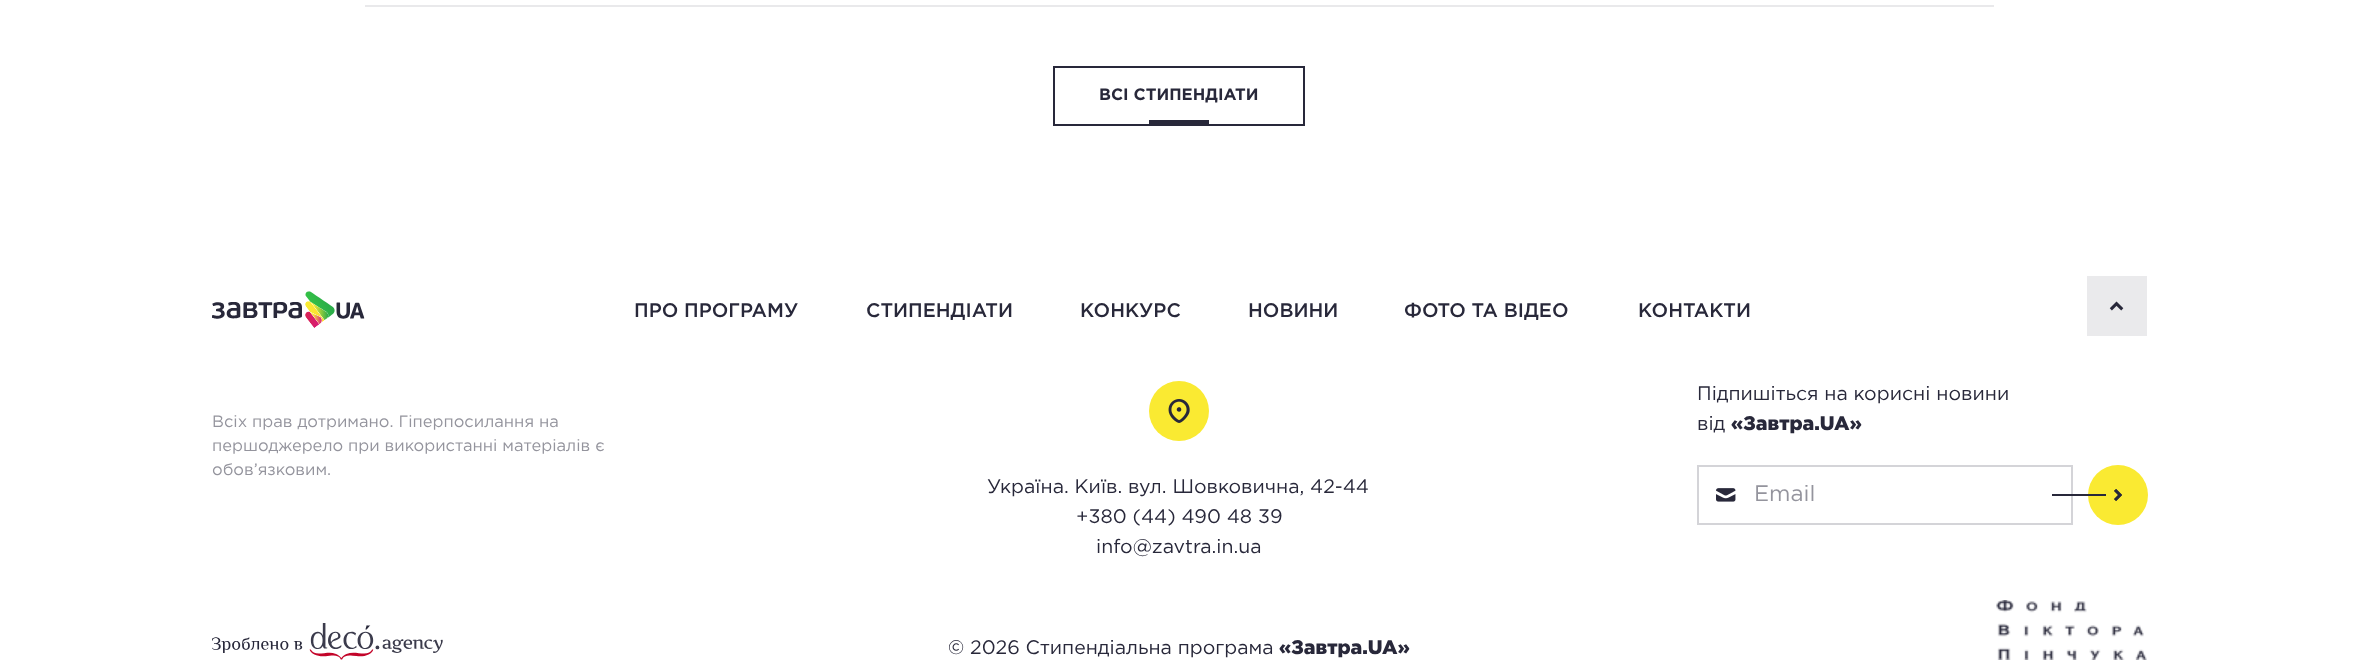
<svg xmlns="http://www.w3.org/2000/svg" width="2358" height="664">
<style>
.a{font:bold 16.5px Gotham;fill:#28283a}
.b{font:500 19.5px Gotham;fill:#28283a}
.c{font:16.5px Gotham;fill:#94949d}
.d{font:19.5px Gotham;fill:#28283a}
.e{font:900 19.5px Gotham;fill:#28283a}
.f{font:22.5px Gotham;fill:#94949d}
</style>
<defs>
<clipPath id="clip1"><path d="M1754 485h303v21H1754z"/></clipPath>
</defs>
<rect width="100%" height="100%" fill="#fff"/>
<path fill="#e9e9eb" d="M365 5h1629v2H365z"/>
<path fill="none" stroke="#28283a" stroke-width="2" d="M1054 67h250v58H1054z"/>
<path fill="#28283a" d="M1149 120h60v4H1149z"/>
<image href="1.png" x="212" y="291" width="153" height="37"/>
<path fill="none" stroke="#d4d4d8" stroke-width="2" d="M1698 466h374v58H1698z"/>
<image href="2.png" x="1716" y="488" width="20" height="14"/>
<circle fill="#faea32" cx="2118" cy="495" r="30"/>
<image href="4.png" x="2114" y="489" width="8" height="12"/>
<image href="3.png" x="2114" y="489" width="8" height="12"/>
<path fill="#28283a" d="M2052 494h54v2H2052z"/>
<circle fill="#faea32" cx="1179" cy="411" r="30"/>
<image href="5.png" x="1168" y="399" width="22" height="24"/>
<image href="6.png" x="212" y="623" width="231" height="37"/>
<image href="7.png" x="1996" y="600" width="151" height="60"/>
<path fill="#eaeaec" d="M2087 276h60v60H2087z"/>
<image href="8.png" x="2109" y="301" width="15" height="10"/>
<text class="a" x="1099" y="100">ВСІ СТИПЕНДІАТИ</text>
<text class="b" x="634" y="317">ПРО ПРОГРАМУ</text>
<text class="b" x="866" y="317">СТИПЕНДІАТИ</text>
<text class="b" x="1080" y="317">КОНКУРС</text>
<text class="b" x="1248" y="317">НОВИНИ</text>
<text class="b" x="1404" y="317">ФОТО ТА ВІДЕО</text>
<text class="b" x="1638" y="317">КОНТАКТИ</text>
<text class="c" x="212" y="427">Всіх прав дотримано. Гіперпосилання на</text>
<text class="c" x="212" y="451">першоджерело при використанні матеріалів є</text>
<text class="c" x="212" y="475">обов’язковим.</text>
<text class="d" x="1697" y="400">Підпишіться на корисні новини</text>
<text class="d" x="1697" y="430">від</text>
<text class="e" x="1731" y="430">«Завтра.UA»</text>
<g clip-path="url(#clip1)">
<text class="f" x="1754" y="501">Email</text>
</g>
<text class="d" x="987" y="493">Україна. Київ. вул. Шовковична, 42-44</text>
<text class="d" x="1076" y="523">+380 (44) 490 48 39</text>
<text class="d" x="1096" y="553">info@zavtra.in.ua</text>
<text class="d" x="948" y="654">© 2026 Стипендіальна програма</text>
<text class="e" x="1279" y="654">«Завтра.UA»</text>
</svg>
